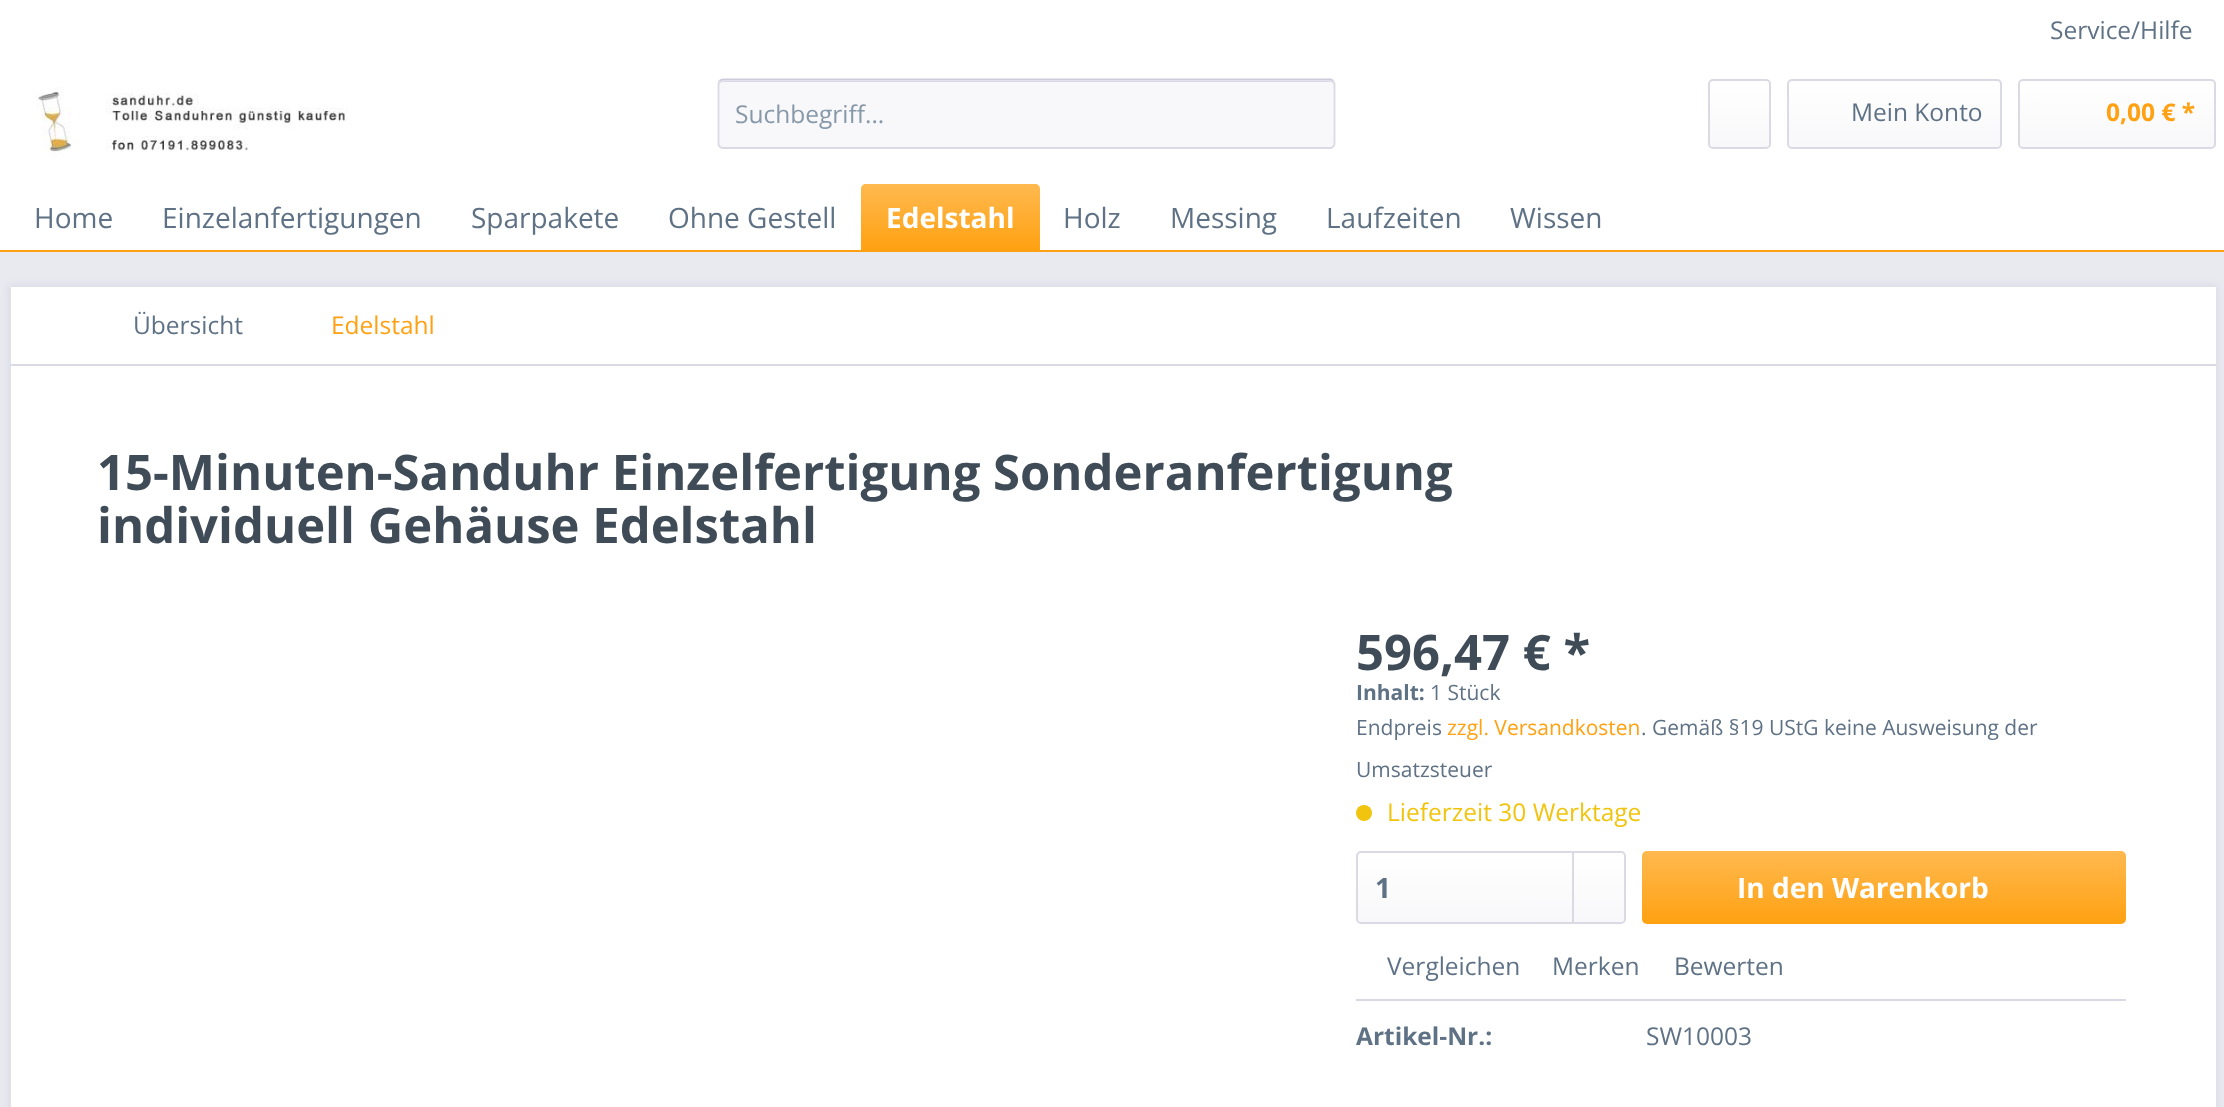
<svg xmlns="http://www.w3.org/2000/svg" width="2224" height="1107">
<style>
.a{font:24.5px Open Sans;fill:#5f7285}
.b{font:24.5px Open Sans;fill:#8798a9}
.c{font:bold 24.5px Open Sans;fill:#ffa112}
.d{font:28px Open Sans;fill:#5f7285}
.e{font:bold 28px Open Sans;fill:#fff}
.f{font:24.5px Open Sans;fill:#ffa112}
.g{font:bold 49px Open Sans;fill:#3f4c58}
.h{font:bold 21px Open Sans;fill:#5f7285}
.i{font:21px Open Sans;fill:#5f7285}
.j{font:21px Open Sans;fill:#ffa112}
.k{font:24.5px Open Sans;fill:#f1c40f}
.l{font:bold 28px Open Sans;fill:#5f7285}
.m{font:bold 24.5px Open Sans;fill:#5f7285}
</style>
<defs>
<linearGradient id="g1" gradientUnits="userSpaceOnUse" x1="1740" y1="81" x2="1740" y2="147"><stop offset="0" stop-color="#fff"/><stop offset="1" stop-color="#f8f8fa"/></linearGradient>
<linearGradient id="g2" gradientUnits="userSpaceOnUse" x1="1894" y1="80" x2="1894" y2="147"><stop offset="0" stop-color="#fff"/><stop offset="1" stop-color="#f8f8fa"/></linearGradient>
<linearGradient id="g3" gradientUnits="userSpaceOnUse" x1="2117" y1="80" x2="2117" y2="147"><stop offset="0" stop-color="#fff"/><stop offset="1" stop-color="#f8f8fa"/></linearGradient>
<linearGradient id="g4" gradientUnits="userSpaceOnUse" x1="950" y1="184" x2="950" y2="250"><stop offset="0" stop-color="#ffb94f"/><stop offset="1" stop-color="#ffa112"/></linearGradient>
<linearGradient id="g5" gradientUnits="userSpaceOnUse" x1="1491" y1="852" x2="1491" y2="922"><stop offset="0" stop-color="#fff"/><stop offset="1" stop-color="#f8f8fa"/></linearGradient>
<linearGradient id="g6" gradientUnits="userSpaceOnUse" x1="1884" y1="851" x2="1884" y2="924"><stop offset="0" stop-color="#ffb94f"/><stop offset="1" stop-color="#ffa112"/></linearGradient>
</defs>
<rect width="100%" height="100%" fill="#e9e9f0"/>
<path fill="#fff" d="M0 0h2224v250H0z"/>
<image href="1.png" x="35" y="87" width="313" height="69"/>
<rect fill="#f8f8fa" x="718" y="79" width="617" height="70" rx="5"/>
<path fill="#dadae5" d="M723 82h607c2 0 4 2 4 4v-1c0-2-2-4-4-4h-607c-2 0-4 2-4 4v1c0-2 2-4 4-4z"/>
<path fill="none" stroke="#cbcbdb" stroke-width="1.8" d="M719.5 81c1-1 2-1.5 3.5-1.5h607c1 0 2.5 .5 3 1.5"/>
<path fill="none" stroke="#dadae5" stroke-width="1.8" d="M1333 81c1 .5 1.5 2 1.5 3v59.5c0 1-.5 2.5-1.5 3c-.5 1-2 1.5-3 1.5h-607c-1.5 0-2.5-.5-3.5-1.5c-.5-.5-1-2-1-3v-59.5c0-1 .5-2.5 1-3"/>
<rect fill="url(#g1)" x="1710" y="81" width="59" height="66" rx="4"/>
<rect fill="none" stroke="#dadae5" stroke-width="2" x="1709" y="80" width="61" height="68" rx="4"/>
<rect fill="url(#g2)" x="1789" y="81" width="211" height="66" rx="4"/>
<rect fill="none" stroke="#dadae5" stroke-width="2" x="1788" y="80" width="213" height="68" rx="4"/>
<rect fill="url(#g3)" x="2020" y="81" width="194" height="66" rx="4"/>
<rect fill="none" stroke="#dadae5" stroke-width="2" x="2019" y="80" width="196" height="68" rx="4"/>
<path fill="#ffa112" d="M0 250h2224v2H0z"/>
<path fill="url(#g4)" d="M866 184h169c3 0 5 2 5 5v61h-179v-61c0-3 2-5 5-5z"/>
<path fill="#dadae5" filter="blur(3.5px)" d="M9 285h2208v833H9z"/>
<path fill="#fff" d="M11 287h2205v820H11z"/>
<path fill="#dadae5" d="M11 364h2205v2H11z"/>
<circle fill="#f1c40f" cx="1364" cy="813" r="8"/>
<rect fill="url(#g5)" x="1358" y="852" width="266" height="70" rx="4"/>
<rect fill="none" stroke="#dadae5" stroke-width="2" x="1357" y="852" width="268" height="71" rx="4"/>
<path fill="#dadae5" d="M1572 852h2v70H1572z"/>
<rect fill="url(#g6)" x="1642" y="851" width="484" height="73" rx="5"/>
<path fill="#dadae5" d="M1356 999h770v2H1356z"/>
<text class="a" x="2050" y="39">Service/Hilfe</text>
<text class="b" x="735" y="123">Suchbegriff...</text>
<text class="a" x="1851" y="121">Mein Konto</text>
<text class="c" x="2106" y="121">0,00 € *</text>
<text class="d" x="34" y="228">Home</text>
<text class="d" x="162" y="228">Einzelanfertigungen</text>
<text class="d" x="471" y="228">Sparpakete</text>
<text class="d" x="668" y="228">Ohne Gestell</text>
<text class="e" x="886" y="228">Edelstahl</text>
<text class="d" x="1063" y="228">Holz</text>
<text class="d" x="1170" y="228">Messing</text>
<text class="d" x="1326" y="228">Laufzeiten</text>
<text class="d" x="1510" y="228">Wissen</text>
<text class="a" x="133" y="334">Übersicht</text>
<text class="f" x="331" y="334">Edelstahl</text>
<text class="g" x="97" y="490">15-Minuten-Sanduhr Einzelfertigung Sonderanfertigung</text>
<text class="g" x="97" y="543">individuell Gehäuse Edelstahl</text>
<text class="g" x="1356" y="670">596,47 € *</text>
<text class="h" x="1356" y="700">Inhalt:</text>
<text class="i" x="1430" y="700">1 Stück</text>
<text class="i" x="1356" y="735">Endpreis</text>
<text class="j" x="1447" y="735">zzgl. Versandkosten</text>
<text class="i" x="1641" y="735">. Gemäß §19 UStG keine Ausweisung der</text>
<text class="i" x="1356" y="777">Umsatzsteuer</text>
<text class="k" x="1387" y="821">Lieferzeit 30 Werktage</text>
<text class="l" x="1375" y="898">1</text>
<text class="e" x="1737" y="898">In den Warenkorb</text>
<text class="a" x="1387" y="975">Vergleichen</text>
<text class="a" x="1552" y="975">Merken</text>
<text class="a" x="1674" y="975">Bewerten</text>
<text class="m" x="1356" y="1045">Artikel-Nr.:</text>
<text class="a" x="1646" y="1045">SW10003</text>
</svg>
